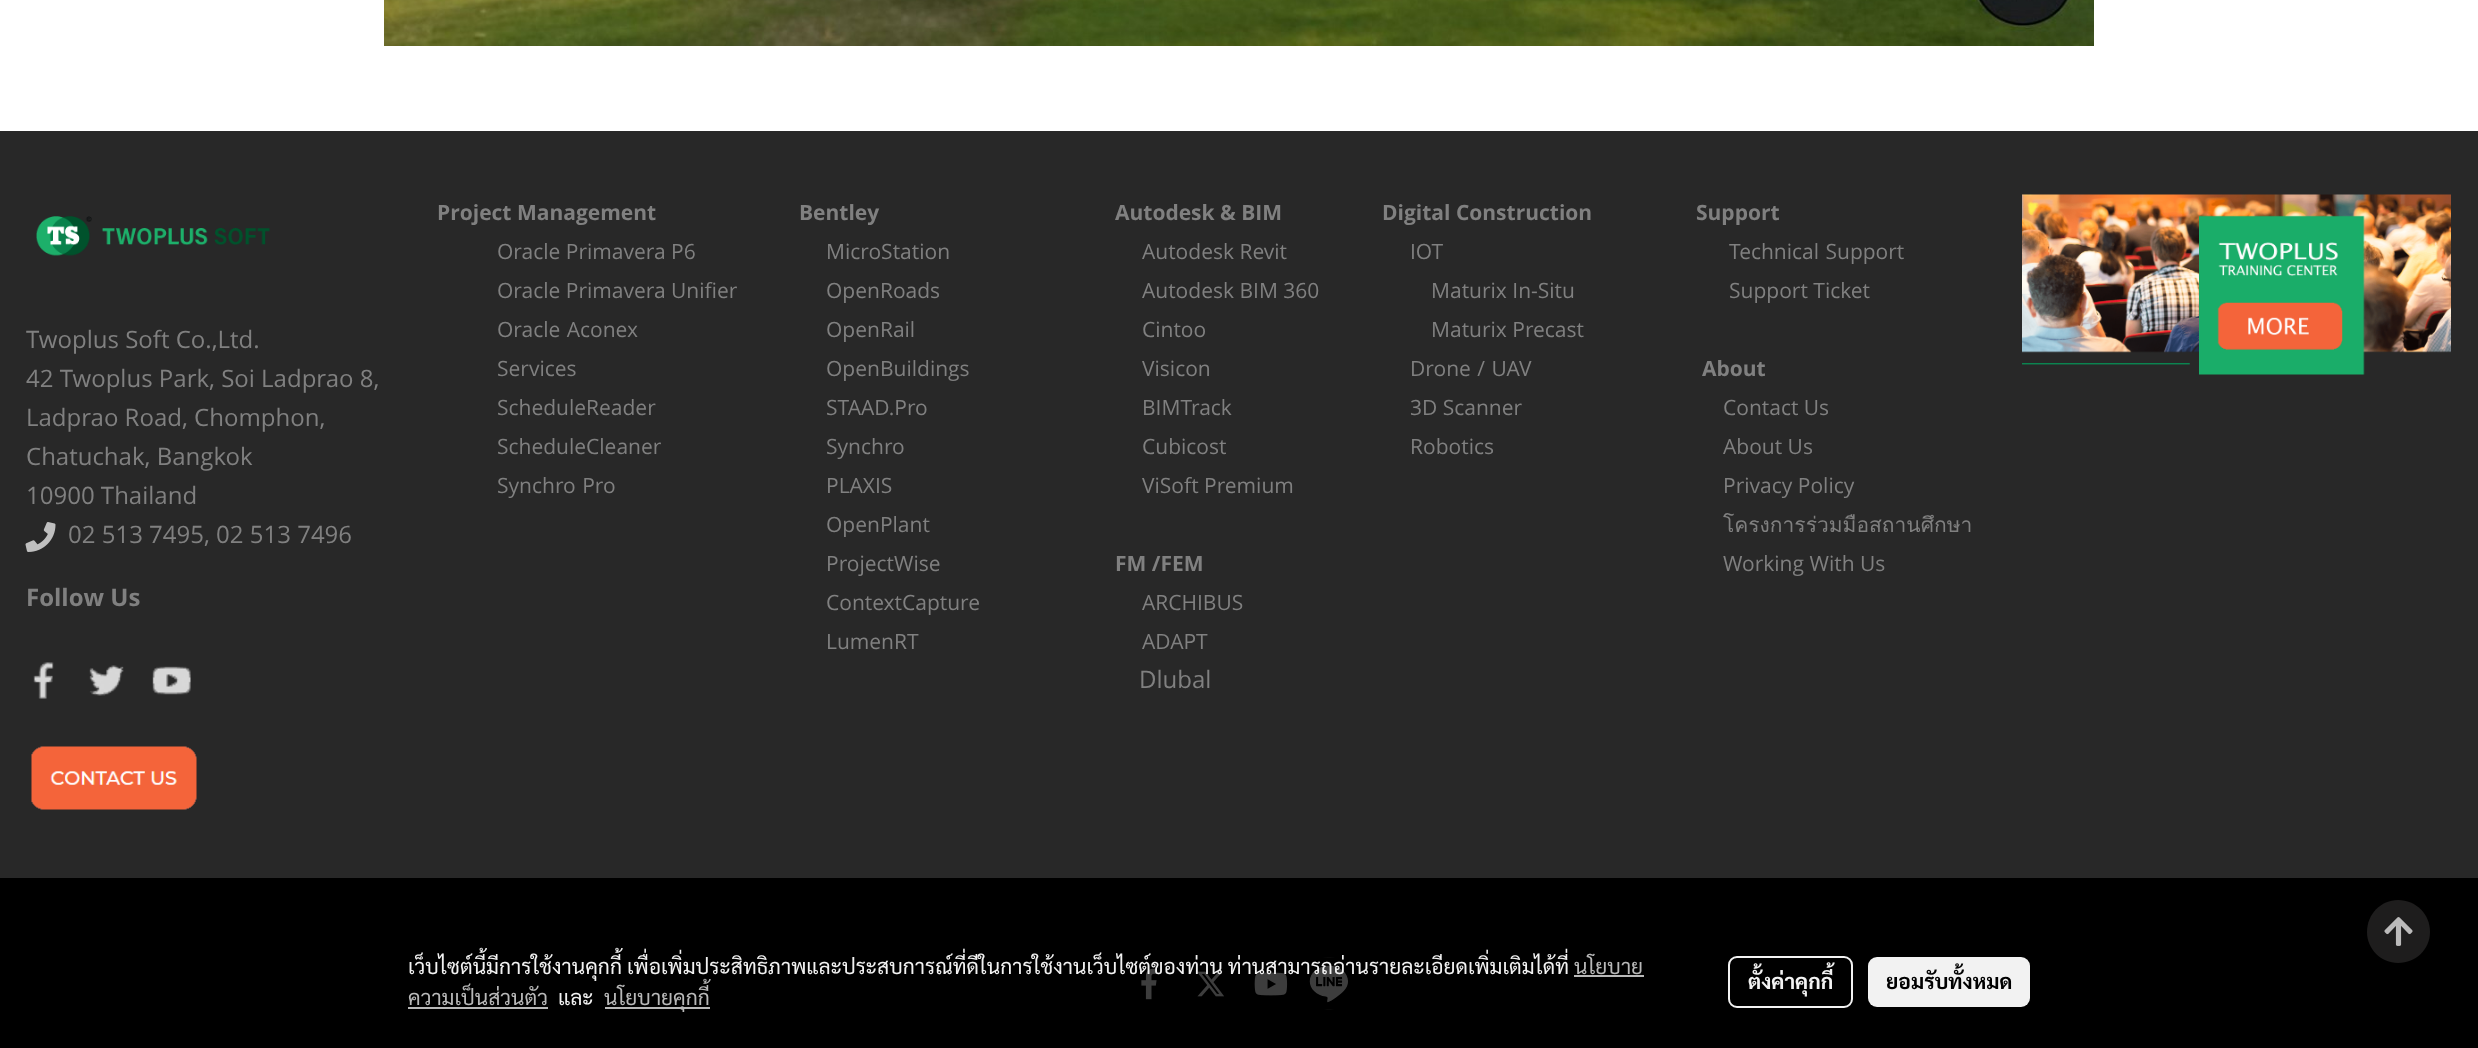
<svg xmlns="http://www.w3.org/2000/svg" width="2478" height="1048">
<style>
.a{font:24px Open Sans;fill:#808080}
.b{font:bold 24px Open Sans;fill:#808080}
.c{font:bold 21px Open Sans;fill:#808080}
.d{font:21px Open Sans;fill:#808080}
.e{font:21px Loma;fill:#808080}
.f{font:21px Sarabun;fill:#f2f2f2}
.g{font:21px Sarabun;fill:#b8b8b8}
.h{font:bold 21px Sarabun;fill:#f2f2f2}
.i{font:bold 21px Sarabun;fill:#000}
</style>
<rect width="100%" height="100%" fill="#fff"/>
<image href="1.png" x="384" y="0" width="1710" height="46"/>
<path fill="#282828" d="M0 131h2478v747H0z"/>
<image href="2.png" x="36" y="216" width="234" height="40"/>
<image href="3.png" x="25" y="522" width="31" height="30"/>
<image href="4.png" x="33" y="662" width="21" height="37"/>
<image href="5.png" x="89" y="665" width="35" height="31"/>
<image href="6.png" x="152" y="666" width="39" height="29"/>
<image href="7.png" x="31" y="746" width="166" height="64"/>
<image href="8.png" x="2022" y="194" width="429" height="181"/>
<path fill="#000" d="M0 878h2478v170H0z"/>
<image href="9.png" x="1141" y="968" width="16" height="32"/>
<image href="10.png" x="1197" y="971" width="28" height="26"/>
<image href="11.png" x="1254" y="972" width="34" height="24"/>
<image href="12.png" x="1309" y="957" width="39" height="53"/>
<path fill="#1e1d1d" d="M2398 900c-17 0-31 14-31 32c0 17 14 31 31 31c18 0 32-14 32-31c0-18-14-32-32-32z"/>
<image href="13.png" x="2384" y="917" width="29" height="29"/>
<rect fill="#000000c2" x="362" y="926" width="1755" height="111" rx="12"/>
<path fill="#b8b8b8" d="M1574 975h70v2H1574z"/>
<path fill="#b8b8b8" d="M408 1007h140v2H408z"/>
<path fill="#b8b8b8" d="M605 1007h105v2H605z"/>
<rect fill="none" stroke="#f2f2f2" stroke-width="2" x="1729" y="957" width="123" height="50" rx="8"/>
<rect fill="#f2f2f2" x="1868" y="957" width="162" height="50" rx="9"/>
<text class="a" x="26" y="348">Twoplus Soft Co.,Ltd.</text>
<text class="a" x="26" y="387">42 Twoplus Park, Soi Ladprao 8,</text>
<text class="a" x="26" y="426">Ladprao Road, Chomphon,</text>
<text class="a" x="26" y="465">Chatuchak, Bangkok</text>
<text class="a" x="26" y="504">10900 Thailand</text>
<text class="a" x="68" y="543">02 513 7495, 02 513 7496</text>
<text class="b" x="26" y="606">Follow Us</text>
<text class="c" x="437" y="220">Project Management</text>
<text class="c" x="799" y="220">Bentley</text>
<text class="c" x="1115" y="220">Autodesk &amp; BIM</text>
<text class="c" x="1382" y="220">Digital Construction</text>
<text class="c" x="1696" y="220">Support</text>
<text class="d" x="497" y="259">Oracle Primavera P6</text>
<text class="d" x="826" y="259">MicroStation</text>
<text class="d" x="1142" y="259">Autodesk Revit</text>
<text class="d" x="1410" y="259">IOT</text>
<text class="d" x="1729" y="259" word-spacing="1">Technical Support</text>
<text class="d" x="497" y="298">Oracle Primavera Unifier</text>
<text class="d" x="826" y="298">OpenRoads</text>
<text class="d" x="1142" y="298">Autodesk BIM 360</text>
<text class="d" x="1431" y="298">Maturix In-Situ</text>
<text class="d" x="1729" y="298">Support Ticket</text>
<text class="d" x="497" y="337" word-spacing="1">Oracle Aconex</text>
<text class="d" x="826" y="337">OpenRail</text>
<text class="d" x="1142" y="337">Cintoo</text>
<text class="d" x="1431" y="337">Maturix Precast</text>
<text class="d" x="497" y="376">Services</text>
<text class="d" x="826" y="376">OpenBuildings</text>
<text class="d" x="1142" y="376">Visicon</text>
<text class="d" x="1410" y="376" word-spacing="1">Drone / UAV</text>
<text class="c" x="1702" y="376">About</text>
<text class="d" x="497" y="415">ScheduleReader</text>
<text class="d" x="826" y="415">STAAD.Pro</text>
<text class="d" x="1142" y="415">BIMTrack</text>
<text class="d" x="1410" y="415">3D Scanner</text>
<text class="d" x="1723" y="415">Contact Us</text>
<text class="d" x="497" y="454">ScheduleCleaner</text>
<text class="d" x="826" y="454">Synchro</text>
<text class="d" x="1142" y="454">Cubicost</text>
<text class="d" x="1410" y="454">Robotics</text>
<text class="d" x="1723" y="454">About Us</text>
<text class="d" x="497" y="493" word-spacing="1">Synchro Pro</text>
<text class="d" x="826" y="493">PLAXIS</text>
<text class="d" x="1142" y="493">ViSoft Premium</text>
<text class="d" x="1723" y="493">Privacy Policy</text>
<text class="d" x="826" y="532">OpenPlant</text>
<text class="e" x="1723" y="532">โครงการร่วมมือสถานศึกษา</text>
<text class="d" x="826" y="571">ProjectWise</text>
<text class="c" x="1115" y="571">FM /FEM</text>
<text class="d" x="1723" y="571">Working With Us</text>
<text class="d" x="826" y="610">ContextCapture</text>
<text class="d" x="1142" y="610">ARCHIBUS</text>
<text class="d" x="826" y="649">LumenRT</text>
<text class="d" x="1142" y="649">ADAPT</text>
<text class="a" x="1139" y="688">Dlubal</text>
<text class="f" x="408" y="974">เว็บไซต์นี้มีการใช้งานคุกกี้ เพื่อเพิ่มประสิทธิภาพและประสบการณ์ที่ดีในการใช้งานเว็บไซต์ของท่าน ท่านสามารถอ่านรายละเอียดเพิ่มเติมได้ที่</text>
<text class="g" x="1574" y="974">นโยบาย</text>
<text class="g" x="408" y="1005">ความเป็นส่วนตัว</text>
<text class="f" x="558" y="1005">และ</text>
<text class="g" x="604" y="1005">นโยบายคุกกี้</text>
<text class="h" x="1748" y="989">ตั้งค่าคุกกี้</text>
<text class="i" x="1886" y="989">ยอมรับทั้งหมด</text>
</svg>
